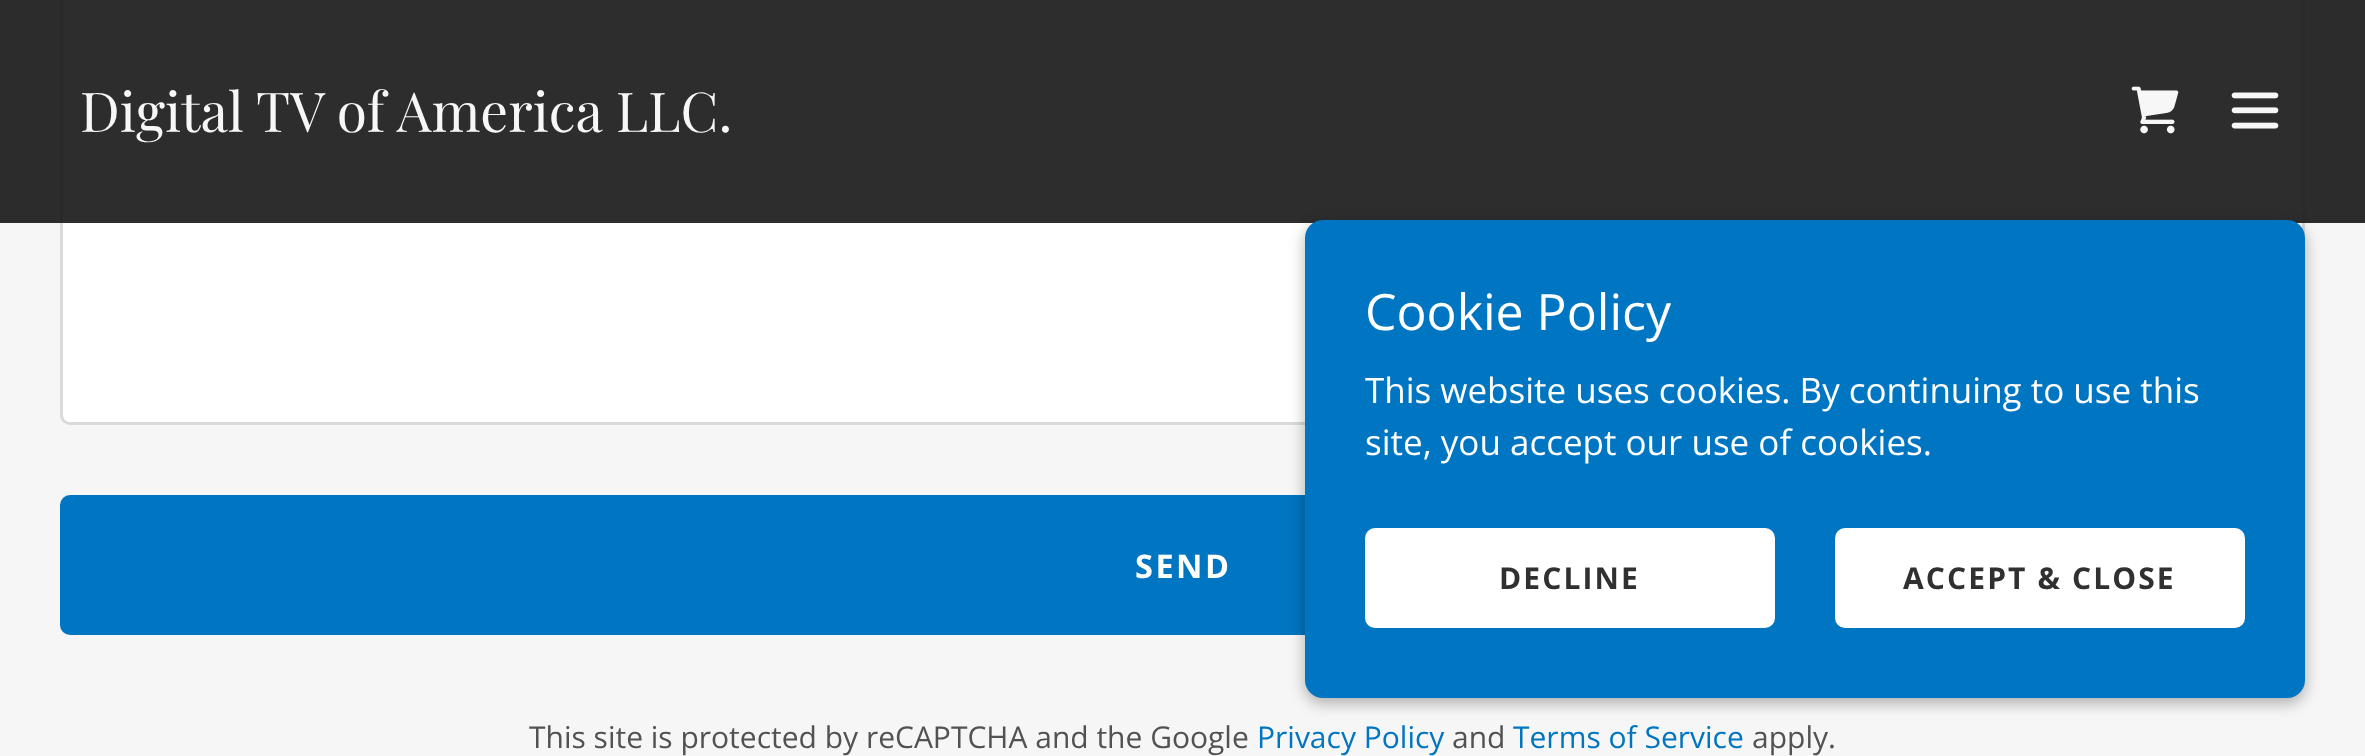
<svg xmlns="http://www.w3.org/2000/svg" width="2365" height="756">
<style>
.a{font:55px Playfair Display;fill:#f7f7f7}
.b{font:50px Open Sans;fill:#fff}
.c{font:35px Open Sans;fill:#fff}
.d{font:bold 30px Open Sans;letter-spacing:2.1px;fill:#303030}
.e{font:bold 32.5px Open Sans;letter-spacing:2.5px;fill:#fff}
.f{font:30px Open Sans;fill:#525252}
.g{font:30px Open Sans;fill:#0075c1}
</style>
<rect width="100%" height="100%" fill="#f6f6f6"/>
<rect fill="#fff" stroke="#dadada" stroke-width="3" x="61.5" y="-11.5" width="2242" height="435" rx="8.5"/>
<path fill="#161616e6" d="M0 0h2365v223H0z"/>
<image href="1.png" x="2131" y="86" width="48" height="48"/>
<image href="2.png" x="2231" y="92" width="48" height="37"/>
<rect fill="#0075c1" x="60" y="495" width="2245" height="140" rx="10"/>
<rect fill="#0000004d" filter="blur(7.5px)" x="1305" y="225" width="1000" height="478" rx="18"/>
<rect fill="#0075c1" x="1305" y="220" width="1000" height="478" rx="18"/>
<rect fill="#fff" x="1365" y="528" width="410" height="100" rx="10"/>
<rect fill="#fff" x="1835" y="528" width="410" height="100" rx="10"/>
<text class="a" x="80" y="132">Digital TV of America LLC.</text>
<text class="b" x="1365" y="330">Cookie Policy</text>
<text class="c" x="1365" y="403">This website uses cookies. By continuing to use this</text>
<text class="c" x="1365" y="455">site, you accept our use of cookies.</text>
<text class="d" x="1499" y="589">DECLINE</text>
<text class="d" x="1903" y="589">ACCEPT &amp; CLOSE</text>
<text class="e" x="1135" y="578">SEND</text>
<text class="f" x="529" y="748">This site is protected by reCAPTCHA and the Google</text>
<text class="g" x="1257" y="748">Privacy Policy</text>
<text class="f" x="1452" y="748">and</text>
<text class="g" x="1513" y="748">Terms of Service</text>
<text class="f" x="1752" y="748">apply.</text>
</svg>
